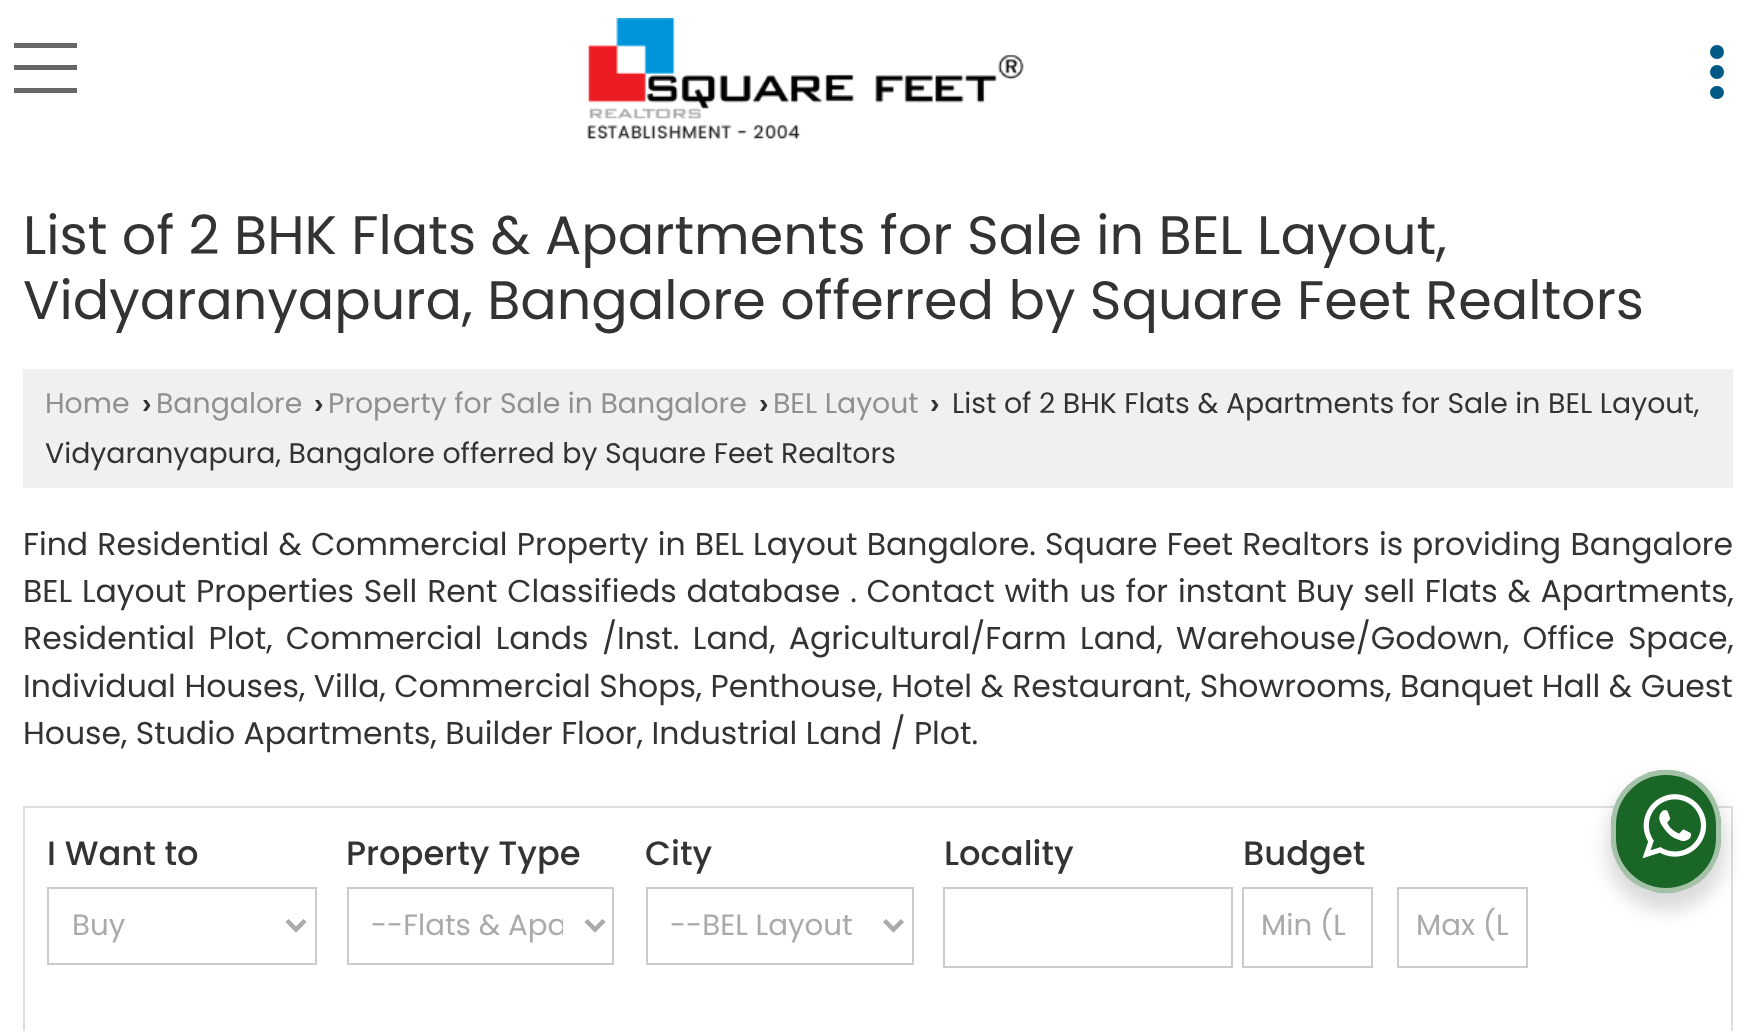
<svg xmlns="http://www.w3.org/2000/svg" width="1755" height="1031">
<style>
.a{font:54px Poppins;fill:#333}
.b{font:28.35px Poppins;fill:#909090}
.c{font:bold 28.35px Liberation Sans;fill:#333}
.d{font:28.35px Poppins;fill:#333}
.e{font:31.5px Poppins;fill:#333}
.f{font:500 33.75px Poppins;fill:#333}
.g{font:29.25px Poppins;fill:#aaa}
</style>
<defs>
<clipPath id="clip1"><path d="M371 902h192v48H371z"/></clipPath>
</defs>
<rect width="100%" height="100%" fill="#fff"/>
<path fill="#666" d="M14 65h63v5H14z"/>
<path fill="#666" d="M14 43h63v5H14z"/>
<path fill="#666" d="M14 88h63v5H14z"/>
<image href="1.png" x="587" y="18" width="437" height="122"/>
<circle fill="#025985" cx="1717" cy="72" r="7"/>
<circle fill="#025985" cx="1717" cy="52" r="7"/>
<rect fill="#025985" x="1710" y="86" width="14" height="13" rx="6.5"/>
<path fill="#f0f0f0" d="M23 369h1710v119H23z"/>
<path fill="none" stroke="#dedede" stroke-width="2" d="M24 807h1708v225H24z"/>
<path fill="none" stroke="#ccc" stroke-width="2" d="M48 888h268v76H48z"/>
<path fill="none" stroke="#aaa" stroke-width="4.5" d="M287 920.5l9 9l9-9"/>
<path fill="none" stroke="#ccc" stroke-width="2" d="M348 888h265v76H348z"/>
<path fill="none" stroke="#aaa" stroke-width="4.5" d="M586 920.5l9 9l9-9"/>
<path fill="none" stroke="#ccc" stroke-width="2" d="M647 888h266v76H647z"/>
<path fill="none" stroke="#aaa" stroke-width="4.5" d="M884.5 920.5l9 9l9-9"/>
<path fill="none" stroke="#ccc" stroke-width="2" d="M944 888h288v79H944z"/>
<path fill="none" stroke="#ccc" stroke-width="2" d="M1243 888h129v79H1243z"/>
<path fill="none" stroke="#ccc" stroke-width="2" d="M1398 888h129v79H1398z"/>
<rect fill="#00000024" filter="blur(9px)" x="1607" y="779" width="119" height="132" rx="59.5"/>
<rect fill="#196626" x="1611" y="770" width="110" height="123" rx="55"/>
<rect fill="none" stroke="#ffffff99" stroke-width="5" x="1613.5" y="772.5" width="105" height="118" rx="52.5"/>
<image href="2.png" x="1642" y="794" width="65" height="65"/>
<text class="a" x="23" y="254">List of 2 BHK Flats &amp; Apartments for Sale in BEL Layout,</text>
<text class="a" x="23" y="319">Vidyaranyapura, Bangalore offerred by Square Feet Realtors</text>
<text class="b" x="45" y="413">Home</text>
<text class="c" x="142" y="413">›</text>
<text class="b" x="156" y="413">Bangalore</text>
<text class="c" x="314" y="413">›</text>
<text class="b" x="328" y="413">Property for Sale in Bangalore</text>
<text class="c" x="759" y="413">›</text>
<text class="b" x="773" y="413">BEL Layout</text>
<text class="c" x="930" y="413">›</text>
<text class="d" x="952" y="413">List of 2 BHK Flats &amp; Apartments for Sale in BEL Layout,</text>
<text class="d" x="45" y="463">Vidyaranyapura, Bangalore offerred by Square Feet Realtors</text>
<text class="e" x="23" y="555" word-spacing="0.75">Find Residential &amp; Commercial Property in BEL Layout Bangalore. Square Feet Realtors is</text>
<text class="e" x="1412" y="555" word-spacing="1">providing Bangalore</text>
<text class="e" x="23" y="602" word-spacing="1.4">BEL Layout Properties Sell Rent Classifieds database . Contact with us for instant Buy sell Flats &amp; Apartments,</text>
<text class="e" x="23" y="649" word-spacing="5">Residential Plot, Commercial Lands /Inst. Land, Agricultural/Farm Land, Warehouse/Godown, Office Space,</text>
<text class="e" x="23" y="697" word-spacing="0.1">Individual Houses, Villa, Commercial Shops, Penthouse, Hotel &amp; Restaurant, Showrooms, Banquet Hall &amp; Guest</text>
<text class="e" x="23" y="744">House, Studio Apartments, Builder Floor, Industrial Land / Plot.</text>
<text class="f" x="47" y="865">I Want to</text>
<text class="g" x="72" y="935">Buy</text>
<text class="f" x="346" y="865">Property Type</text>
<g clip-path="url(#clip1)">
<text class="g" x="371" y="935">--Flats &amp; Apa</text>
</g>
<text class="f" x="645" y="865">City</text>
<text class="g" x="670" y="935">--BEL Layout</text>
<text class="f" x="944" y="865">Locality</text>
<text class="f" x="1243" y="865">Budget</text>
<text class="g" x="1261" y="935">Min (L</text>
<text class="g" x="1416" y="935">Max (L</text>
</svg>
